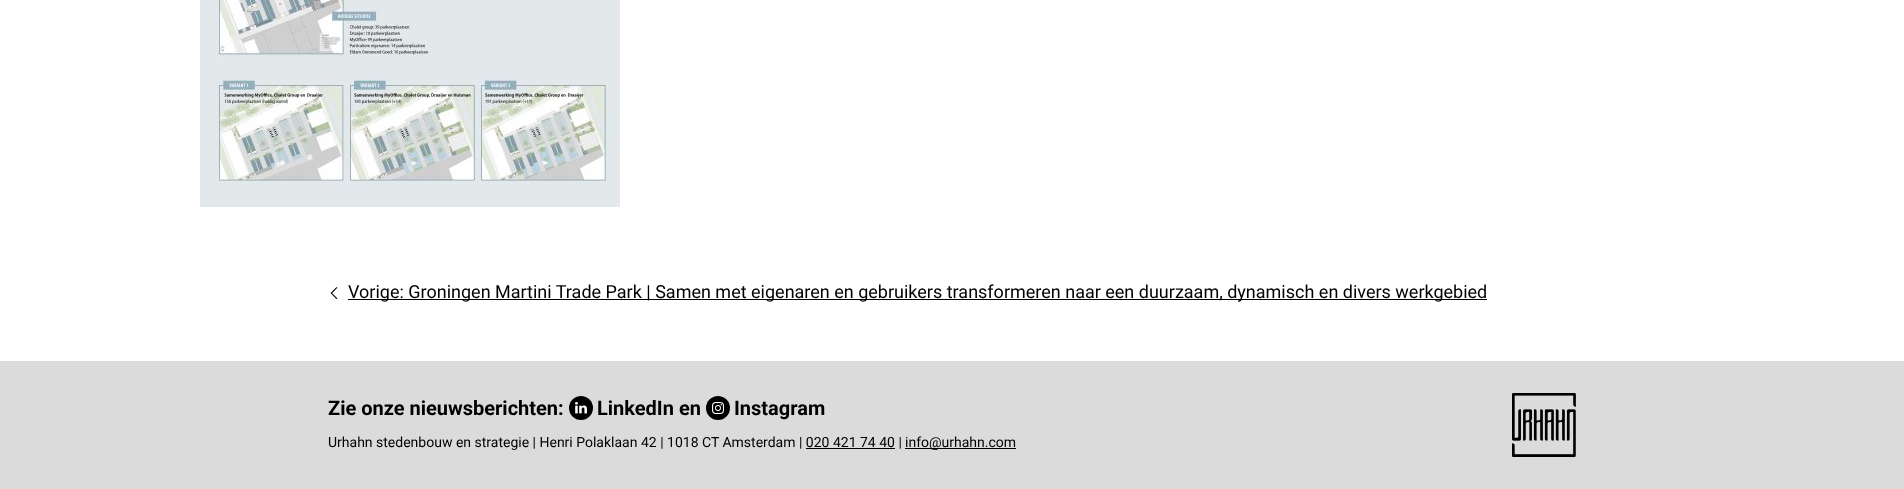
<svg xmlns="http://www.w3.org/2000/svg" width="1904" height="489">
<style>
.a{font:18px Roboto;fill:#000}
.b{font:bold 20px Roboto;fill:#000}
.c{font:14px Roboto;fill:#000}
</style>
<rect width="100%" height="100%" fill="#fff"/>
<image href="1.png" x="200" y="0" width="420" height="207"/>
<image href="2.png" x="330" y="287" width="8" height="12"/>
<path fill="#000" d="M348 299h1139v1H348z"/>
<path fill="#dbdbdb" d="M0 361h1904v128H0z"/>
<circle fill="#000" cx="581" cy="408" r="12"/>
<image href="3.png" x="575" y="402" width="12" height="12"/>
<circle fill="#000" cx="718" cy="408" r="12"/>
<image href="4.png" x="712" y="402" width="12" height="12"/>
<path fill="#000" d="M905 448h111v1H905z"/>
<path fill="#000" d="M806 448h89v1H806z"/>
<image href="5.png" x="1512" y="393" width="64" height="64"/>
<text class="a" x="348" y="298">Vorige: Groningen Martini Trade Park | Samen met eigenaren en gebruikers transformeren naar een duurzaam, dynamisch en divers werkgebied</text>
<text class="b" x="328" y="415">Zie onze nieuwsberichten:</text>
<text class="b" x="597" y="415">LinkedIn en</text>
<text class="b" x="734" y="415">Instagram</text>
<text class="c" x="328" y="447">Urhahn stedenbouw en strategie | Henri Polaklaan 42 | 1018 CT Amsterdam | 020 421 74 40 |</text>
<text class="c" x="905" y="447">info@urhahn.com</text>
</svg>
